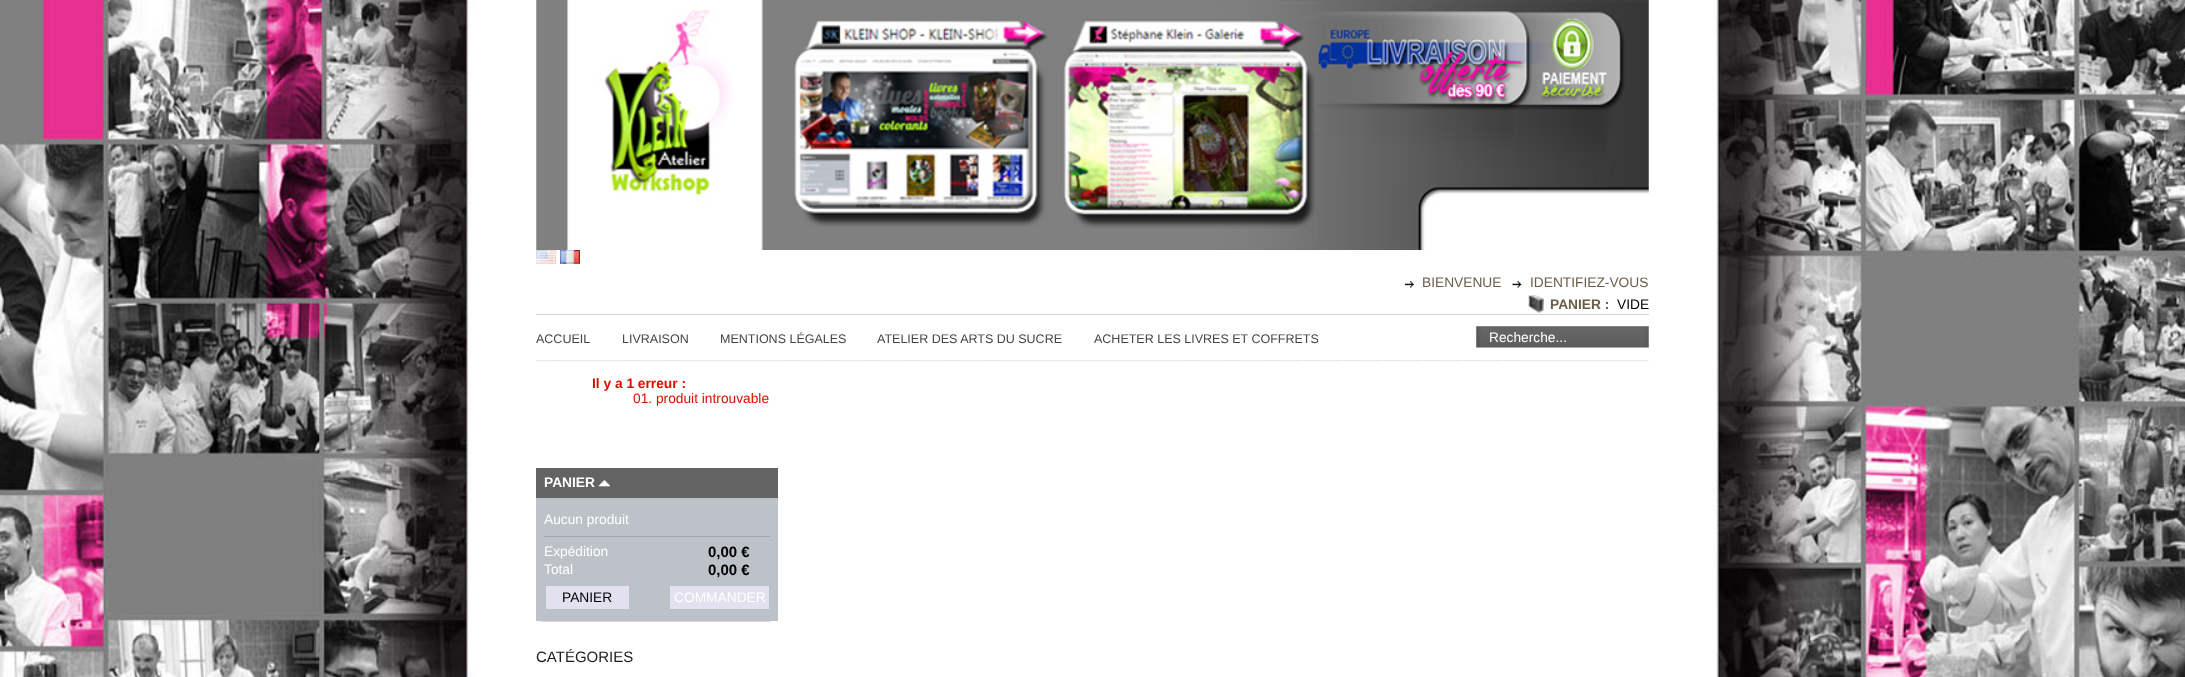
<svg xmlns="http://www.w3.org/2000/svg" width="2185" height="677">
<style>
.a{font:13.75px Liberation Sans;fill:#6a5d4a}
.b{font:bold 13.75px Liberation Sans;fill:#6a5d4a}
.c{font:13.75px Liberation Sans;fill:#000}
.d{font:12.5px Liberation Sans;fill:#464546}
.e{font:13.75px Liberation Sans;fill:#fff}
.f{font:bold 13.75px Liberation Sans;fill:#da0f00}
.g{font:13.75px Liberation Sans;fill:#da0f00}
.h{font:bold 13.75px Liberation Sans;fill:#fff}
.i{font:bold 15px Liberation Sans;fill:#000}
.j{font:15px Liberation Sans;fill:#1d1b1b}
</style>
<rect width="100%" height="100%" fill="#fff"/>
<image href="1.png" x="0" y="0" width="2185" height="677"/>
<image href="2.png" x="536" y="0" width="1113" height="250"/>
<image href="3.png" x="567" y="0" width="196" height="250"/>
<image href="4.png" x="794" y="20" width="254" height="207"/>
<image href="5.png" x="1063" y="0" width="254" height="250"/>
<image href="6.png" x="536" y="250" width="21" height="14"/>
<image href="7.png" x="560" y="250" width="20" height="14"/>
<image href="8.png" x="1405" y="281" width="9" height="7"/>
<image href="9.png" x="1512" y="281" width="10" height="7"/>
<image href="10.png" x="1528" y="295" width="16" height="18"/>
<image href="11.png" x="536" y="360" width="1113" height="2"/>
<path fill="#d4d4d4" d="M536 314h1113v1H536z"/>
<image href="12.png" x="1476" y="326" width="173" height="22"/>
<image href="13.png" x="536" y="621" width="239" height="1"/>
<path fill="#636363" d="M536 468h242v30H536z"/>
<image href="14.png" x="598" y="479" width="12" height="8"/>
<path fill="#bdc2c9" d="M536 498h242v123H536z"/>
<path fill="#a6a5af" d="M544 536h226v1H544z"/>
<path fill="#e3e1ef" d="M546 586h83v23H546z"/>
<path fill="#e3e1ef" d="M670 586h99v23H670z"/>
<text class="a" x="1422" y="287">BIENVENUE</text>
<text class="a" x="1530" y="287">IDENTIFIEZ-VOUS</text>
<text class="b" x="1550" y="309">PANIER :</text>
<text class="c" x="1617" y="309">VIDE</text>
<text class="d" x="536" y="343">ACCUEIL</text>
<text class="d" x="622" y="343">LIVRAISON</text>
<text class="d" x="720" y="343">MENTIONS LÉGALES</text>
<text class="d" x="877" y="343">ATELIER DES ARTS DU SUCRE</text>
<text class="d" x="1094" y="343">ACHETER LES LIVRES ET COFFRETS</text>
<text class="e" x="1489" y="342">Recherche...</text>
<text class="f" x="592" y="388">Il y a 1 erreur :</text>
<text class="g" x="633" y="403">01. produit introuvable</text>
<text class="h" x="544" y="487">PANIER</text>
<text class="e" x="544" y="524">Aucun produit</text>
<text class="e" x="544" y="556">Expédition</text>
<text class="i" x="708" y="557">0,00 €</text>
<text class="e" x="544" y="574">Total</text>
<text class="i" x="708" y="575">0,00 €</text>
<text class="c" x="562" y="602">PANIER</text>
<text class="e" x="674" y="602">COMMANDER</text>
<text class="j" x="536" y="662">CATÉGORIES</text>
</svg>
